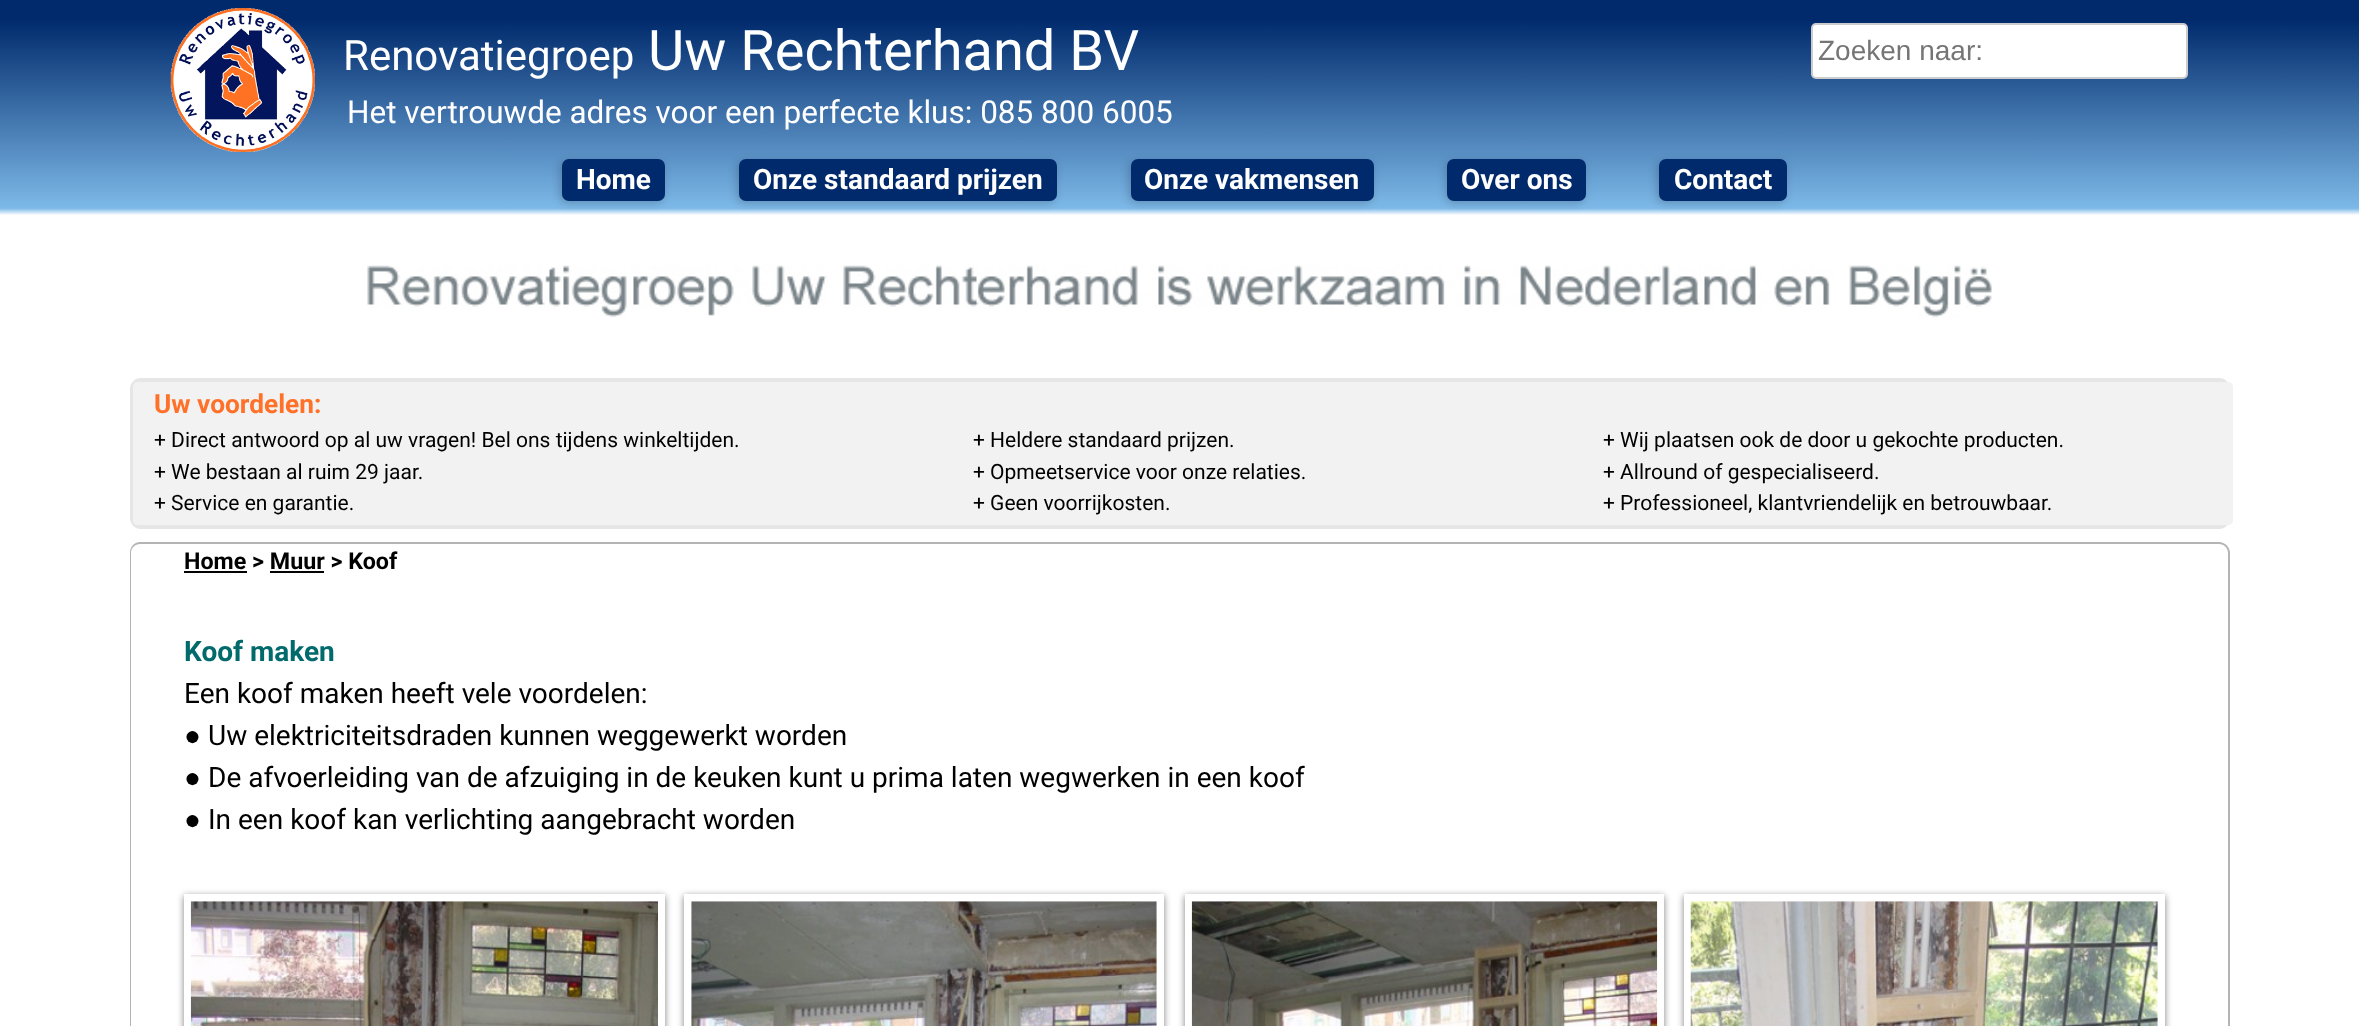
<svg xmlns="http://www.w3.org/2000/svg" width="2359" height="1026">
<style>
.a{font:42px Roboto;fill:#fff}
.b{font:56px Roboto;fill:#fff}
.c{font:28px Liberation Sans;fill:#757575}
.d{font:31.5px Roboto;fill:#fff}
.e{font:bold 28px Roboto;fill:#fff}
.f{font:bold 26.25px Roboto;fill:#ff7129}
.g{font:21px Roboto;fill:#000}
.h{font:bold 23.25px Roboto;fill:#000}
.i{font:bold 28px Roboto;fill:#006a6c}
.j{font:28px Roboto;fill:#000}
.k{font:28px Liberation Sans;fill:#000}
</style>
<defs>
<linearGradient id="g1" gradientUnits="userSpaceOnUse" x1="1180" y1="-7" x2="1180" y2="215"><stop offset="0" stop-color="#002a6c"/><stop offset="0.12" stop-color="#002a6c"/><stop offset="0.97" stop-color="#7db9e8"/><stop offset="1" stop-color="#fff"/></linearGradient>
</defs>
<rect width="100%" height="100%" fill="#fff"/>
<path fill="url(#g1)" d="M0 0h2359v215H0z"/>
<image href="1.png" x="170" y="8" width="145" height="144"/>
<rect fill="#fff" stroke="#ccc" stroke-width="2" x="1812" y="24" width="375" height="54" rx="4"/>
<rect fill="#00000033" filter="blur(4.5px)" x="560" y="161" width="103" height="42" rx="7"/>
<rect fill="#002a6c" x="562" y="159" width="103" height="42" rx="7"/>
<rect fill="#00000033" filter="blur(4.5px)" x="737" y="161" width="318" height="42" rx="7"/>
<rect fill="#002a6c" x="739" y="159" width="318" height="42" rx="7"/>
<rect fill="#00000033" filter="blur(4.5px)" x="1129" y="161" width="243" height="42" rx="7"/>
<rect fill="#002a6c" x="1131" y="159" width="243" height="42" rx="7"/>
<rect fill="#00000033" filter="blur(4.5px)" x="1446" y="161" width="138" height="42" rx="7"/>
<rect fill="#002a6c" x="1447" y="159" width="139" height="42" rx="7"/>
<rect fill="#00000033" filter="blur(4.5px)" x="1657" y="161" width="128" height="42" rx="7"/>
<rect fill="#002a6c" x="1659" y="159" width="128" height="42" rx="7"/>
<image href="2.png" x="367" y="265" width="1625" height="53"/>
<rect fill="none" stroke="#e6e6e6" stroke-width="4" x="132" y="380" width="2096" height="147" rx="9"/>
<path fill="#f2f2f2" d="M138 382h835v143h-835c-3 0-5-2-5-5v-133c0-3 2-5 5-5z"/>
<path fill="#f2f2f2" d="M973 382h630v143H973z"/>
<path fill="#f2f2f2" d="M1603 382h625c3 0 5 2 5 5v133c0 3-2 5-5 5h-625z"/>
<path fill="#b4b4b4" fill-rule="evenodd" d="M140 542h2079c6 0 11 5 11 11v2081h-2100v-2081c0-6 4-11 10-11zm0 2h2079c5 0 9 4 9 9v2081h-2097v-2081c0-5 4-9 9-9z"/>
<path fill="#000" d="M184 571h63v2H184z"/>
<path fill="#000" d="M270 571h54v2H270z"/>
<path fill="#00000080" filter="blur(3.5px)" d="M184 896h481v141H184z"/>
<path fill="#fff" d="M184 894h481v132H184z"/>
<image href="3.png" x="190" y="901" width="468" height="125"/>
<path fill="#00000080" filter="blur(3.5px)" d="M684 896h480v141H684z"/>
<path fill="#fff" d="M684 894h480v132H684z"/>
<image href="4.png" x="691" y="901" width="466" height="125"/>
<path fill="#00000080" filter="blur(3.5px)" d="M1185 896h479v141H1185z"/>
<path fill="#fff" d="M1185 894h479v132H1185z"/>
<image href="5.png" x="1191" y="901" width="467" height="125"/>
<path fill="#00000080" filter="blur(3.5px)" d="M1684 896h481v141H1684z"/>
<path fill="#fff" d="M1684 894h481v132H1684z"/>
<image href="6.png" x="1690" y="901" width="468" height="125"/>
<text class="a" x="343" y="70">Renovatiegroep</text>
<text class="b" x="648" y="70">Uw Rechterhand BV</text>
<text class="c" x="1818" y="60">Zoeken naar:</text>
<text class="d" x="347" y="123">Het vertrouwde adres voor een perfecte klus: 085 800 6005</text>
<text class="e" x="576" y="189">Home</text>
<text class="e" x="753" y="189">Onze standaard prijzen</text>
<text class="e" x="1144" y="189">Onze vakmensen</text>
<text class="e" x="1461" y="189">Over ons</text>
<text class="e" x="1674" y="189">Contact</text>
<text class="f" x="154" y="413">Uw voordelen:</text>
<text class="g" x="154" y="447">+ Direct antwoord op al uw vragen! Bel ons tijdens winkeltijden.</text>
<text class="g" x="154" y="479">+ We bestaan al ruim 29 jaar.</text>
<text class="g" x="154" y="510">+ Service en garantie.</text>
<text class="g" x="973" y="447">+ Heldere standaard prijzen.</text>
<text class="g" x="973" y="479">+ Opmeetservice voor onze relaties.</text>
<text class="g" x="973" y="510">+ Geen voorrijkosten.</text>
<text class="g" x="1603" y="447">+ Wij plaatsen ook de door u gekochte producten.</text>
<text class="g" x="1603" y="479">+ Allround of gespecialiseerd.</text>
<text class="g" x="1603" y="510">+ Professioneel, klantvriendelijk en betrouwbaar.</text>
<text class="h" x="184" y="569">Home &gt; Muur &gt; Koof</text>
<text class="i" x="184" y="661">Koof maken</text>
<text class="j" x="184" y="703">Een koof maken heeft vele voordelen:</text>
<text class="k" x="184" y="745">●</text>
<text class="j" x="208" y="745">Uw elektriciteitsdraden kunnen weggewerkt worden</text>
<text class="k" x="184" y="787">●</text>
<text class="j" x="208" y="787">De afvoerleiding van de afzuiging in de keuken kunt u prima laten wegwerken in een koof</text>
<text class="k" x="184" y="829">●</text>
<text class="j" x="208" y="829">In een koof kan verlichting aangebracht worden</text>
</svg>
